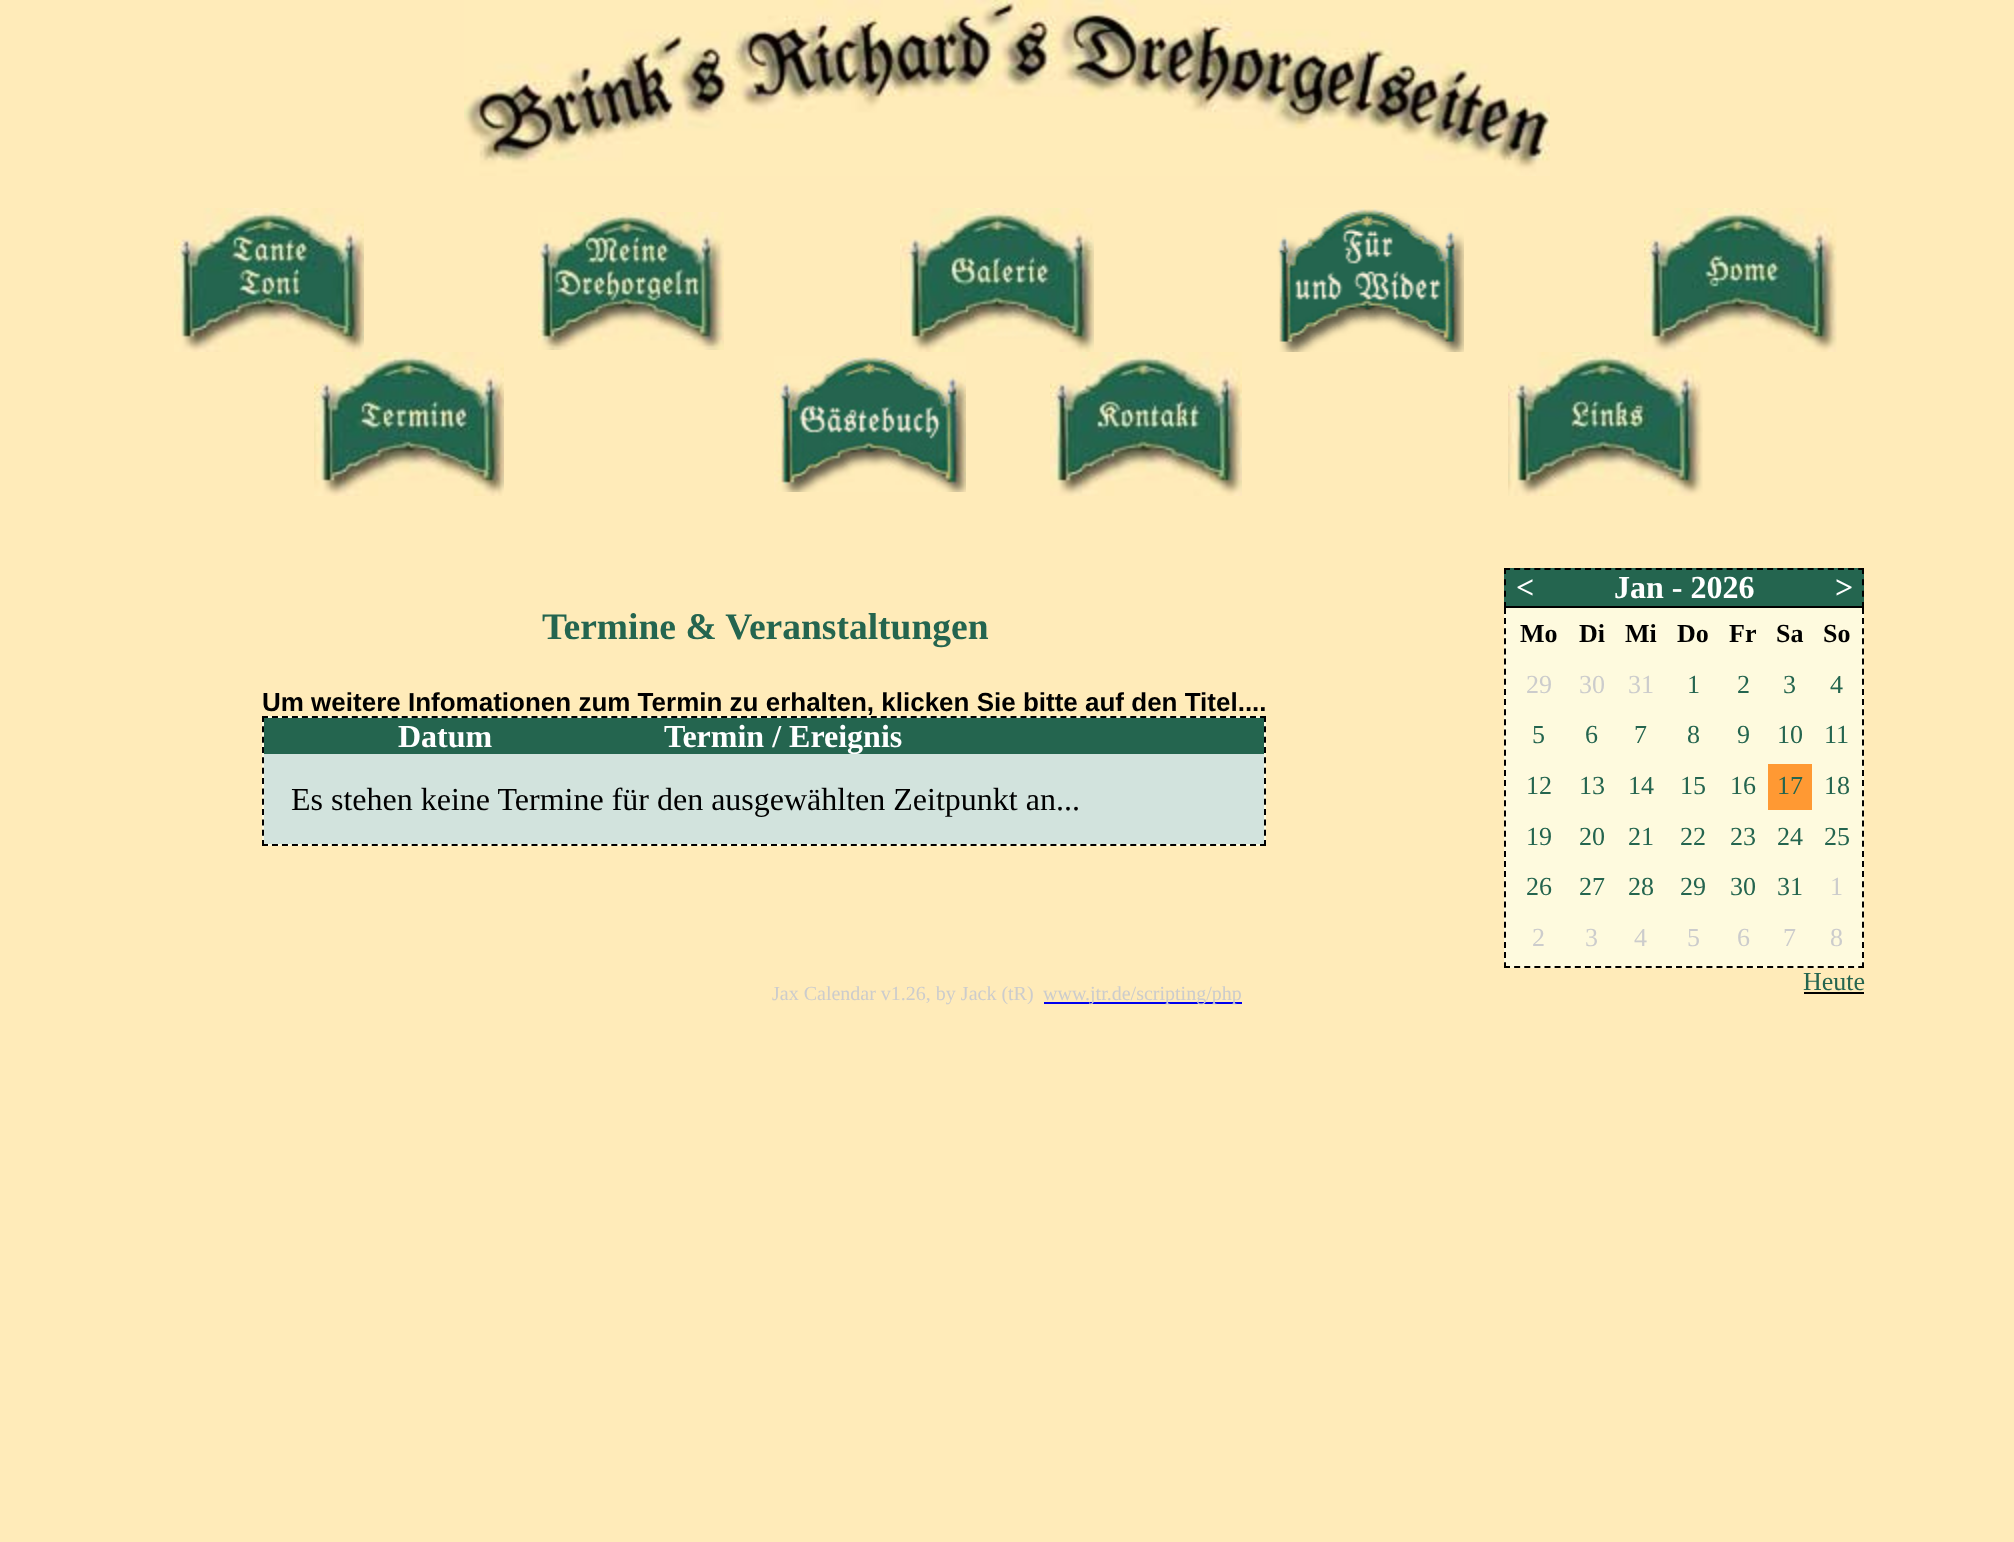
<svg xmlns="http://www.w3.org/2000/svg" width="2014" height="1542">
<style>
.a{font:bold 37.5px Liberation Serif;fill:#24654f}
.b{font:bold 26px Liberation Sans;fill:#000}
.c{font:bold 32px Liberation Serif;fill:#fff}
.d{font:32px Liberation Serif;fill:#000}
.e{font:bold 26px Liberation Serif;fill:#000}
.f{font:26px Liberation Serif;fill:#ccc}
.g{font:26px Liberation Serif;fill:#24654f}
.h{font:20px Liberation Serif;fill:#ccc}
</style>
<rect width="100%" height="100%" fill="#ffebb9"/>
<image href="1.png" x="464" y="0" width="1086" height="176"/>
<image href="2.png" x="174" y="208" width="190" height="144"/>
<image href="3.png" x="538" y="212" width="186" height="138"/>
<image href="4.png" x="900" y="208" width="194" height="144"/>
<image href="5.png" x="1277" y="208" width="187" height="144"/>
<image href="6.png" x="1644" y="208" width="193" height="144"/>
<image href="7.png" x="314" y="352" width="190" height="144"/>
<image href="8.png" x="774" y="356" width="192" height="136"/>
<image href="9.png" x="1050" y="352" width="192" height="144"/>
<image href="10.png" x="1508" y="352" width="195" height="144"/>
<path fill="#fefade" d="M262 716h1004v130H262z"/>
<path fill="none" stroke="#000" stroke-width="2" stroke-dasharray="6 3.98" d="M262 717h1004"/>
<path fill="none" stroke="#000" stroke-width="2" stroke-dasharray="6 4.34" d="M1265 716v130"/>
<path fill="none" stroke="#000" stroke-width="2" stroke-dasharray="6 3.98" d="M262 845h1004"/>
<path fill="none" stroke="#000" stroke-width="2" stroke-dasharray="6 4.34" d="M263 716v130"/>
<path fill="#24654f" d="M264 718h1000v36H264z"/>
<path fill="#d2e3dd" d="M264 754h1000v90H264z"/>
<path fill="#24654f" d="M1504 568h360v38H1504z"/>
<path fill="none" stroke="#000" stroke-width="2" stroke-dasharray="6 4.12" d="M1504 569h360"/>
<path fill="none" stroke="#000" stroke-width="2" stroke-dasharray="6 5.34" d="M1863 568v40"/>
<path fill="#000" d="M1504 606h360v2H1504z"/>
<path fill="none" stroke="#000" stroke-width="2" stroke-dasharray="6 5.34" d="M1505 568v40"/>
<path fill="#fefade" d="M1504 608h360v360H1504z"/>
<path fill="none" stroke="#000" stroke-width="2" stroke-dasharray="6 4.12" d="M1863 608v360"/>
<path fill="none" stroke="#000" stroke-width="2" stroke-dasharray="6 4.12" d="M1504 967h360"/>
<path fill="none" stroke="#000" stroke-width="2" stroke-dasharray="6 4.12" d="M1505 608v360"/>
<path fill="#f93" d="M1768 764h44v46H1768z"/>
<path fill="#000" d="M1804 992h60v2H1804z"/>
<path fill="#00e" d="M1044 1002h198v2H1044z"/>
<text class="a" x="542" y="639">Termine &amp; Veranstaltungen</text>
<text class="b" x="262" y="711">Um weitere Infomationen zum Termin zu erhalten, klicken Sie bitte auf den Titel....</text>
<text class="c" x="398" y="747">Datum</text>
<text class="c" x="664" y="747">Termin / Ereignis</text>
<text class="d" x="291" y="810">Es stehen keine Termine für den ausgewählten Zeitpunkt an...</text>
<text class="c" x="1516" y="598">&lt;</text>
<text class="c" x="1614" y="598">Jan - 2026</text>
<text class="c" x="1835" y="598">&gt;</text>
<text class="e" x="1520" y="642">Mo</text>
<text class="e" x="1579" y="642">Di</text>
<text class="e" x="1625" y="642">Mi</text>
<text class="e" x="1677" y="642">Do</text>
<text class="e" x="1729" y="642">Fr</text>
<text class="e" x="1776" y="642">Sa</text>
<text class="e" x="1823" y="642">So</text>
<text class="f" x="1526" y="693">29</text>
<text class="f" x="1579" y="693">30</text>
<text class="f" x="1628" y="693">31</text>
<text class="g" x="1687" y="693">1</text>
<text class="g" x="1737" y="693">2</text>
<text class="g" x="1783" y="693">3</text>
<text class="g" x="1830" y="693">4</text>
<text class="g" x="1532" y="743">5</text>
<text class="g" x="1585" y="743">6</text>
<text class="g" x="1634" y="743">7</text>
<text class="g" x="1687" y="743">8</text>
<text class="g" x="1737" y="743">9</text>
<text class="g" x="1777" y="743">10</text>
<text class="g" x="1824" y="743">11</text>
<text class="g" x="1526" y="794">12</text>
<text class="g" x="1579" y="794">13</text>
<text class="g" x="1628" y="794">14</text>
<text class="g" x="1680" y="794">15</text>
<text class="g" x="1730" y="794">16</text>
<text class="g" x="1777" y="794">17</text>
<text class="g" x="1824" y="794">18</text>
<text class="g" x="1526" y="845">19</text>
<text class="g" x="1579" y="845">20</text>
<text class="g" x="1628" y="845">21</text>
<text class="g" x="1680" y="845">22</text>
<text class="g" x="1730" y="845">23</text>
<text class="g" x="1777" y="845">24</text>
<text class="g" x="1824" y="845">25</text>
<text class="g" x="1526" y="895">26</text>
<text class="g" x="1579" y="895">27</text>
<text class="g" x="1628" y="895">28</text>
<text class="g" x="1680" y="895">29</text>
<text class="g" x="1730" y="895">30</text>
<text class="g" x="1777" y="895">31</text>
<text class="f" x="1830" y="895">1</text>
<text class="f" x="1532" y="946">2</text>
<text class="f" x="1585" y="946">3</text>
<text class="f" x="1634" y="946">4</text>
<text class="f" x="1687" y="946">5</text>
<text class="f" x="1737" y="946">6</text>
<text class="f" x="1783" y="946">7</text>
<text class="f" x="1830" y="946">8</text>
<text class="g" x="1803" y="990">Heute</text>
<text class="h" x="772" y="1000">Jax Calendar v1.26, by Jack (tR)</text>
<text class="h" x="1043" y="1000">www.jtr.de/scripting/php</text>
</svg>
